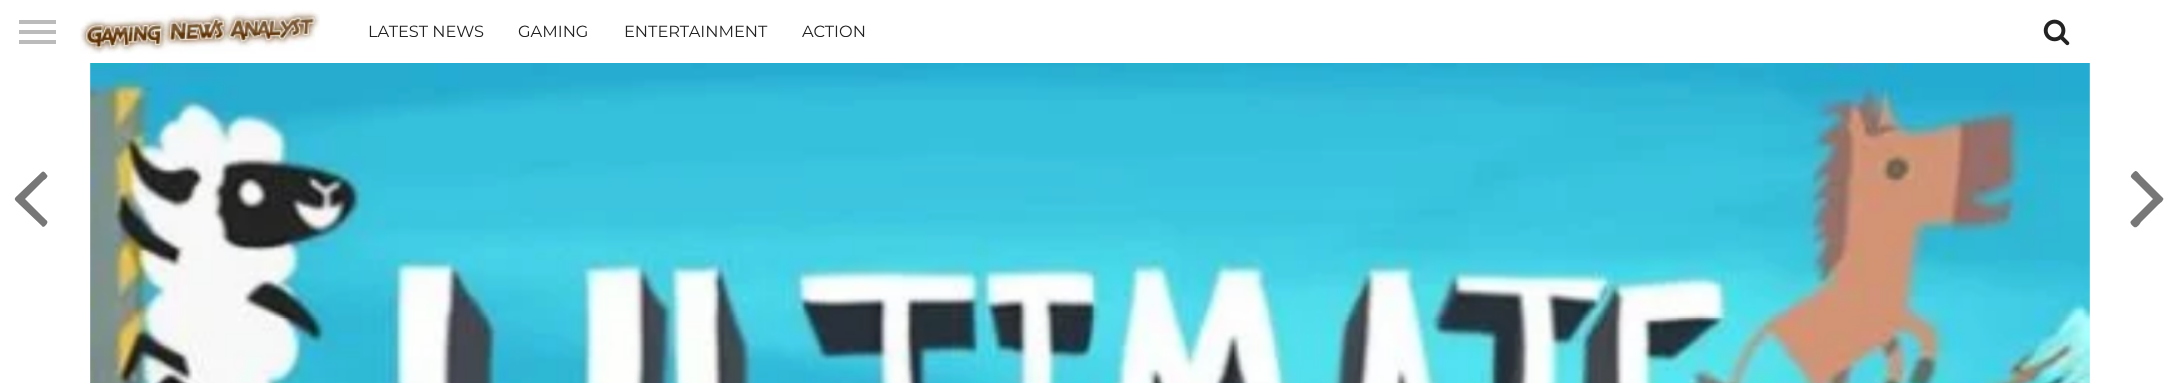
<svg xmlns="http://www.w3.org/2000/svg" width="2178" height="383">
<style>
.a{font:16.25px Montserrat;fill:#222}
</style>
<rect width="100%" height="100%" fill="#fff"/>
<path fill="#bbb" d="M19 20h37v4H19z"/>
<path fill="#bbb" d="M19 30h37v4H19z"/>
<path fill="#bbb" d="M19 40h37v4H19z"/>
<image href="1.png" x="80" y="10" width="240" height="44"/>
<image href="2.png" x="2043" y="19" width="27" height="27"/>
<image href="3.png" x="90" y="63" width="2000" height="320"/>
<path fill="#777" d="M47 175c2 2-3 5-4 6l-18 18l18 18c4 4 6 4 3 8c-1 1-3 3-4 1l-22-21c-7-7-7-5 0-12l22-21c2-2 4 2 5 3z"/>
<path fill="#777" d="M2163 198c2 2-4 6-5 7l-17 17c0 0-4 7-7 5c-1-1-5-4-3-6l22-22l-18-18c-4-4-6-4-2-8c4-4 4-1 8 3z"/>
<text class="a" x="368" y="37">LATEST NEWS</text>
<text class="a" x="518" y="37">GAMING</text>
<text class="a" x="624" y="37">ENTERTAINMENT</text>
<text class="a" x="802" y="37">ACTION</text>
</svg>
